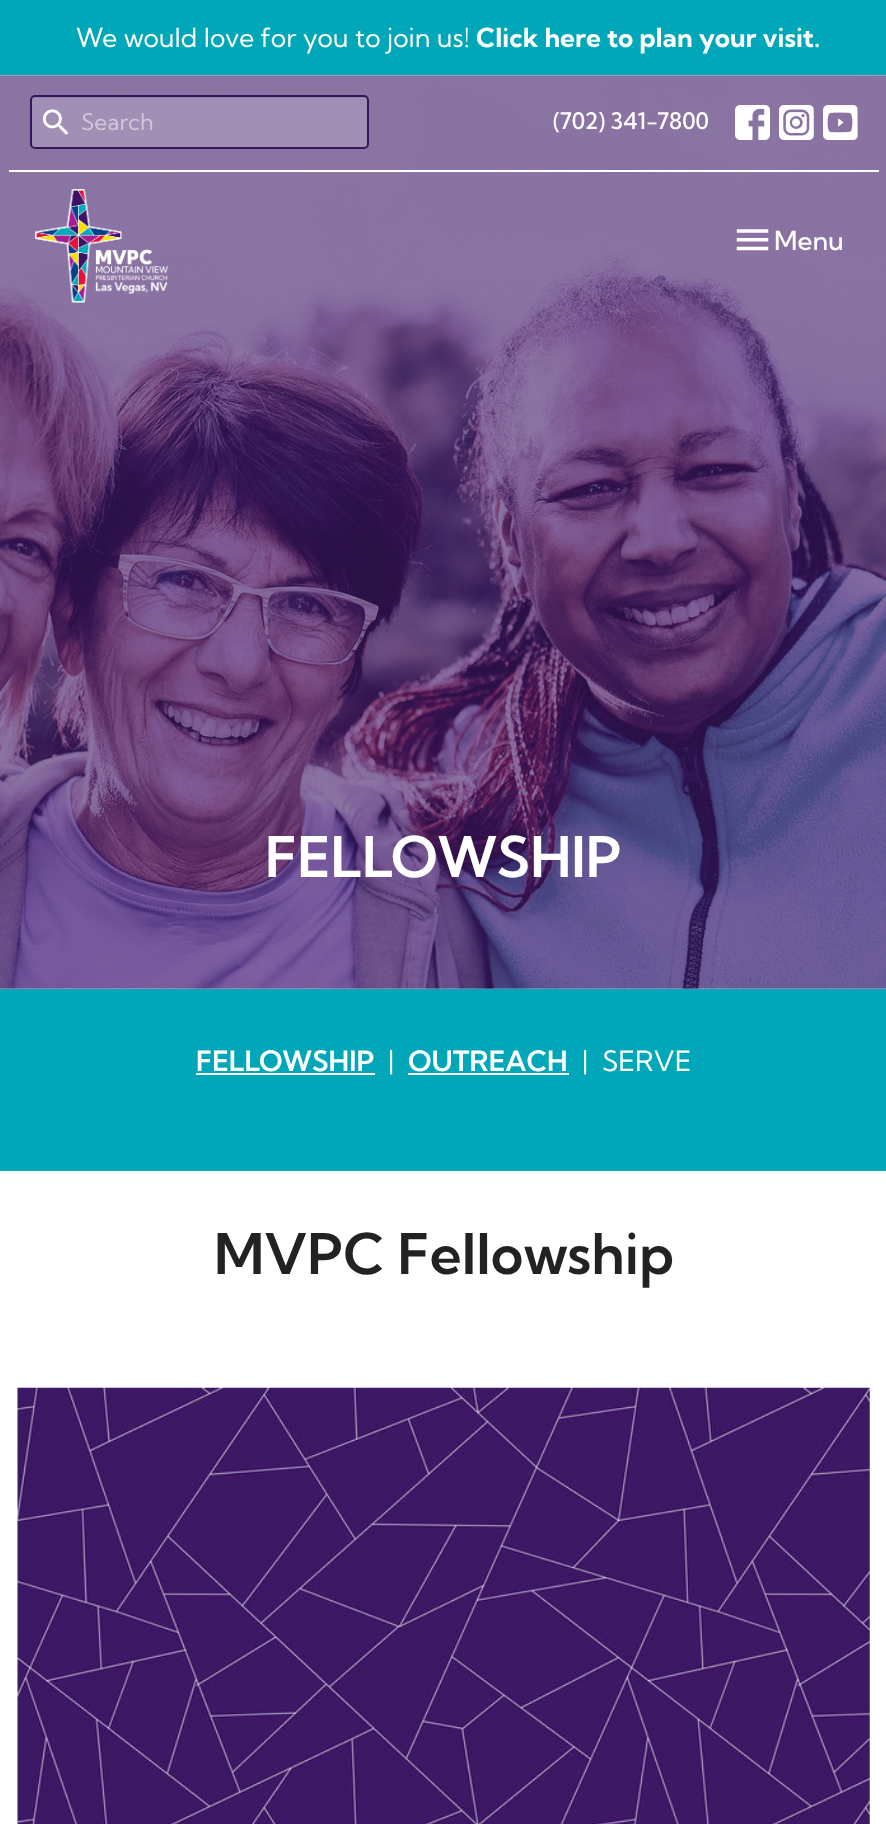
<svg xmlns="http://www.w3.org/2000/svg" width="886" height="1824">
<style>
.a{font:26.25px Kumbh Sans;fill:#fff}
.b{font:bold 26.25px Kumbh Sans;fill:#fff}
.c{font:22.75px Kumbh Sans;fill:#d1c7da}
.d{font:500 22.75px Kumbh Sans;fill:#fff}
.e{font:500 26.25px Kumbh Sans;fill:#fff}
.f{font:600 56px Kumbh Sans;fill:#fff}
.g{font:600 28px Kumbh Sans;fill:#fff}
.h{font:28px Kumbh Sans;fill:#fff}
.i{font:600 56px Kumbh Sans;fill:#222}
</style>
<rect width="100%" height="100%" fill="#fff"/>
<path fill="#00a7b8" d="M0 0h886v75H0z"/>
<image href="7.png" x="0" y="75" width="886" height="914"/>
<path fill="#fff" d="M9 170h870v2H9z"/>
<rect fill="#a28fb5" x="30" y="95" width="339" height="54" rx="5"/>
<path fill="#9684a7" d="M35 98h329c2 0 4 2 4 4c0-3 0-6-4-6h-328c-4 0-4 3-4 6c0-2 1-4 3-4z"/>
<rect fill="none" stroke="#361559" stroke-width="2" x="31" y="96" width="337" height="52" rx="4"/>
<image href="1.png" x="42" y="109" width="27" height="26"/>
<image href="2.png" x="735" y="105" width="35" height="35"/>
<image href="3.png" x="779" y="105" width="35" height="35"/>
<image href="4.png" x="823" y="105" width="35" height="35"/>
<image href="5.png" x="35" y="189" width="133" height="114"/>
<image href="6.png" x="736" y="229" width="33" height="22"/>
<path fill="#00a7b8" d="M0 989h886v182H0z"/>
<path fill="#fff" d="M196 1073h179v2H196z"/>
<path fill="#fff" d="M408 1073h161v2H408z"/>
<image href="8.png" x="17" y="1387" width="853" height="437"/>
<text class="a" x="76" y="47">We would love for you to join us!</text>
<text class="b" x="476" y="47">Click here to plan your visit.</text>
<text class="c" x="81" y="130">Search</text>
<text class="d" x="553" y="129">(702) 341-7800</text>
<text class="e" x="774" y="250">Menu</text>
<text class="f" x="265" y="877">FELLOWSHIP</text>
<text class="g" x="196" y="1071">FELLOWSHIP</text>
<text class="h" x="388" y="1071">|</text>
<text class="g" x="408" y="1071">OUTREACH</text>
<text class="h" xml:space="preserve" x="582" y="1071">|  SERVE</text>
<text class="i" x="214" y="1274">MVPC Fellowship</text>
</svg>
